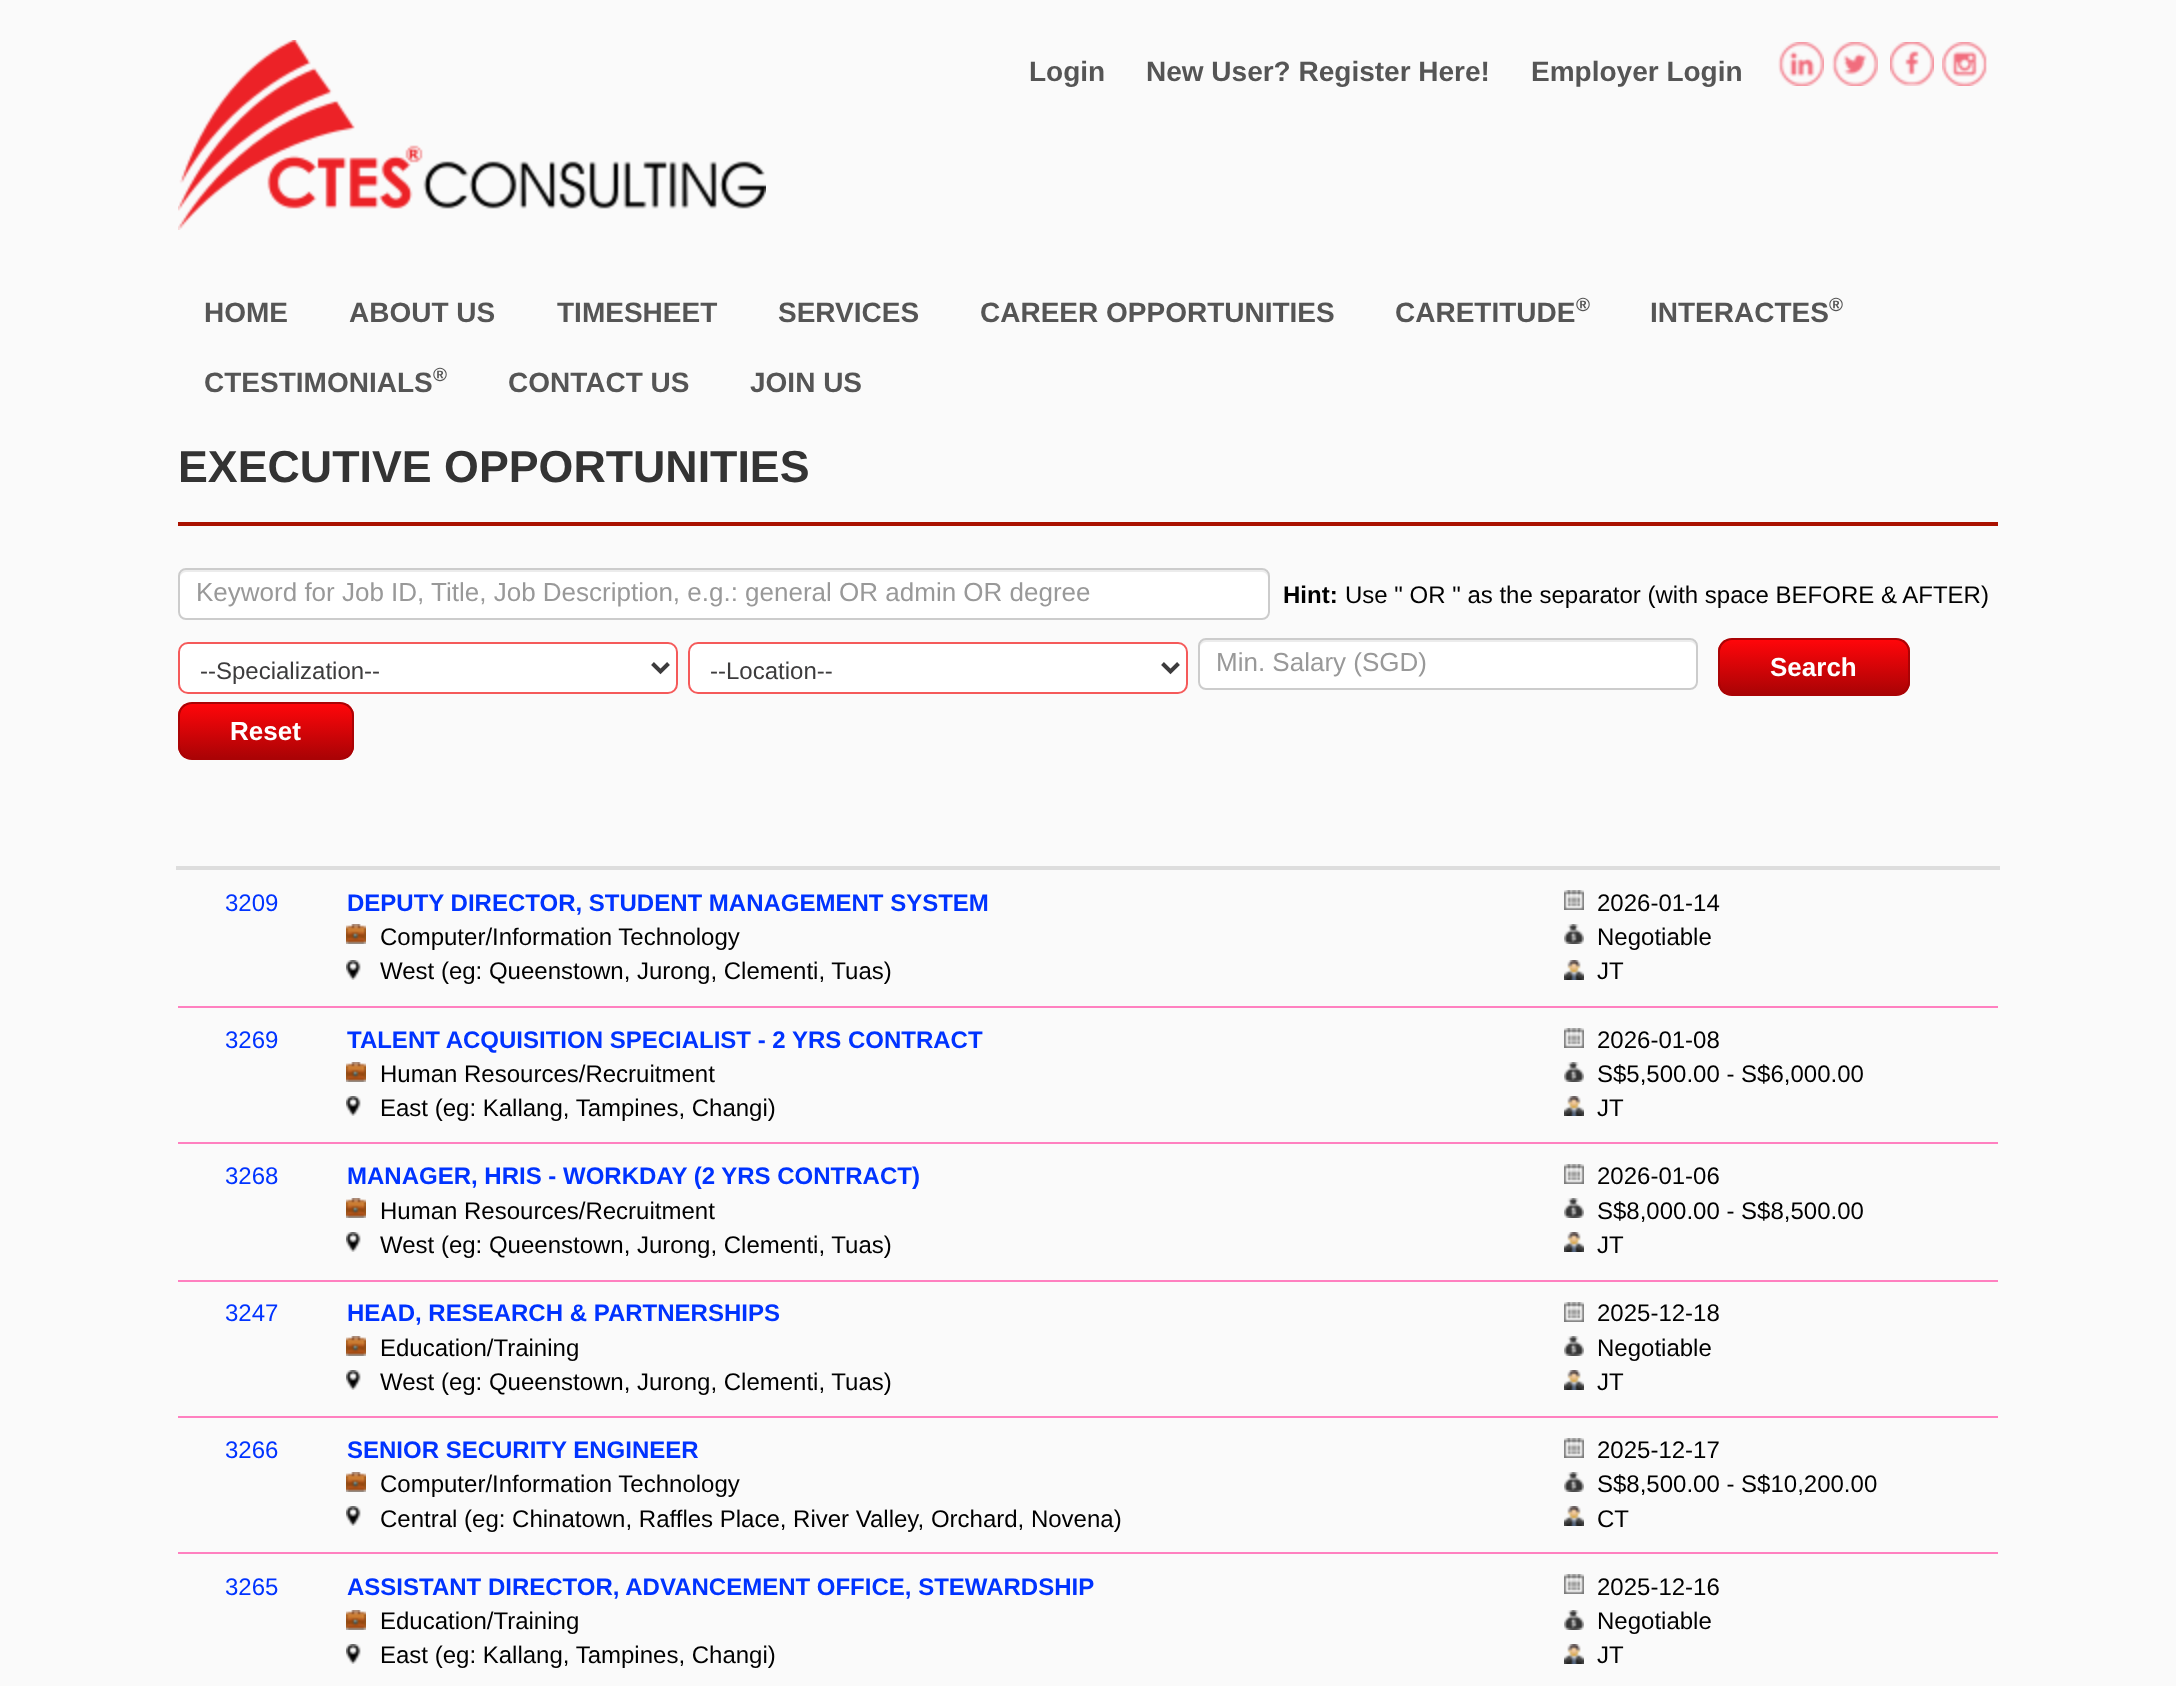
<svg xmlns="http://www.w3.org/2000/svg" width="2176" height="1686">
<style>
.a{font:bold 28px Liberation Sans;fill:#555}
.b{font:bold 19px Liberation Sans;fill:#555}
.c{font:bold 44.75px Liberation Sans;fill:#333}
.d{font:26px Liberation Sans;fill:#999}
.e{font:bold 24px Liberation Sans;fill:#000}
.f{font:24px Liberation Sans;fill:#000}
.g{font:24px Liberation Sans;fill:#3d3c3d}
.h{font:bold 26px Liberation Sans;fill:#fff}
.i{font:24px Liberation Sans;fill:#03f}
.j{font:bold 24px Liberation Sans;fill:#03f}
</style>
<defs>
<clipPath id="clip1"><rect x="1718" y="638" width="192" height="58" rx="14"/></clipPath>
<linearGradient id="g1" gradientUnits="userSpaceOnUse" x1="1814" y1="640" x2="1814" y2="694"><stop offset="0" stop-color="#ff060a"/><stop offset="1" stop-color="#aa0305"/></linearGradient>
<clipPath id="clip2"><rect x="178" y="702" width="176" height="58" rx="14"/></clipPath>
<linearGradient id="g2" gradientUnits="userSpaceOnUse" x1="266" y1="704" x2="266" y2="758"><stop offset="0" stop-color="#ff060a"/><stop offset="1" stop-color="#aa0305"/></linearGradient>
</defs>
<rect width="100%" height="100%" fill="#fafafa"/>
<image href="1.png" x="178" y="40" width="588" height="190"/>
<image href="2.png" x="1778" y="42" width="46" height="44"/>
<image href="3.png" x="1832" y="42" width="46" height="44"/>
<image href="4.png" x="1890" y="42" width="44" height="44"/>
<image href="5.png" x="1942" y="42" width="45" height="44"/>
<path fill="#a10" d="M178 522h1820v4H178z"/>
<rect fill="#fff" x="178" y="568" width="1092" height="52" rx="8"/>
<path fill="#ececec" d="M186 572h1076c3 0 6 3 6 6v-2c0-3-3-6-6-6h-1076c-3 0-6 3-6 6v2c0-3 3-6 6-6z"/>
<rect fill="none" stroke="#ccc" stroke-width="2" x="179" y="569" width="1090" height="50" rx="7"/>
<rect fill="#fff" stroke="#f55a5a" stroke-width="2" x="179" y="643" width="498" height="50" rx="9"/>
<path fill="none" stroke="#3d3c3d" stroke-width="4" d="M652.5 663.5l8 8l8-8"/>
<rect fill="#fff" stroke="#f55a5a" stroke-width="2" x="689" y="643" width="498" height="50" rx="9"/>
<path fill="none" stroke="#3d3c3d" stroke-width="4" d="M1162.5 663.5l8 8l8-8"/>
<rect fill="#fff" x="1198" y="638" width="500" height="52" rx="8"/>
<path fill="#ececec" d="M1206 642h484c3 0 6 3 6 6c0-4-1-8-6-8h-484c-5 0-6 4-6 8c0-3 3-6 6-6z"/>
<rect fill="none" stroke="#ccc" stroke-width="2" x="1199" y="639" width="498" height="50" rx="7"/>
<g clip-path="url(#clip1)">
<path fill="url(#g1)" d="M1718 640h192v54H1718z"/>
</g>
<rect fill="none" stroke="#aa0305" stroke-width="2" x="1719" y="639" width="190" height="56" rx="13"/>
<g clip-path="url(#clip2)">
<path fill="url(#g2)" d="M178 704h176v54H178z"/>
</g>
<rect fill="none" stroke="#aa0305" stroke-width="2" x="179" y="703" width="174" height="56" rx="13"/>
<path fill="#ddd" d="M176 866h1824v4H176z"/>
<path fill="#ff80c0" d="M178 1006h1820v2H178z"/>
<image href="6.png" x="346" y="924" width="20" height="20"/>
<image href="7.png" x="346" y="960" width="15" height="20"/>
<image href="8.png" x="1564" y="890" width="20" height="20"/>
<image href="9.png" x="1564" y="924" width="20" height="20"/>
<image href="10.png" x="1564" y="960" width="20" height="20"/>
<path fill="#ff80c0" d="M178 1142h1820v2H178z"/>
<image href="6.png" x="346" y="1062" width="20" height="20"/>
<image href="7.png" x="346" y="1096" width="15" height="20"/>
<image href="8.png" x="1564" y="1028" width="20" height="20"/>
<image href="9.png" x="1564" y="1062" width="20" height="20"/>
<image href="10.png" x="1564" y="1096" width="20" height="20"/>
<path fill="#ff80c0" d="M178 1280h1820v2H178z"/>
<image href="6.png" x="346" y="1198" width="20" height="20"/>
<image href="7.png" x="346" y="1232" width="15" height="20"/>
<image href="8.png" x="1564" y="1164" width="20" height="20"/>
<image href="9.png" x="1564" y="1198" width="20" height="20"/>
<image href="10.png" x="1564" y="1232" width="20" height="20"/>
<path fill="#ff80c0" d="M178 1416h1820v2H178z"/>
<image href="6.png" x="346" y="1336" width="20" height="20"/>
<image href="7.png" x="346" y="1370" width="15" height="20"/>
<image href="8.png" x="1564" y="1302" width="20" height="20"/>
<image href="9.png" x="1564" y="1336" width="20" height="20"/>
<image href="10.png" x="1564" y="1370" width="20" height="20"/>
<path fill="#ff80c0" d="M178 1552h1820v2H178z"/>
<image href="6.png" x="346" y="1472" width="20" height="20"/>
<image href="7.png" x="346" y="1506" width="15" height="20"/>
<image href="8.png" x="1564" y="1438" width="20" height="20"/>
<image href="9.png" x="1564" y="1472" width="20" height="20"/>
<image href="10.png" x="1564" y="1506" width="20" height="20"/>
<image href="6.png" x="346" y="1610" width="20" height="20"/>
<image href="7.png" x="346" y="1644" width="15" height="20"/>
<image href="8.png" x="1564" y="1574" width="20" height="20"/>
<image href="9.png" x="1564" y="1610" width="20" height="20"/>
<image href="10.png" x="1564" y="1644" width="20" height="20"/>
<text class="a" x="1029" y="81">Login</text>
<text class="a" x="1146" y="81">New User? Register Here!</text>
<text class="a" x="1531" y="81">Employer Login</text>
<text class="a" x="204" y="322">HOME</text>
<text class="a" x="349" y="322">ABOUT US</text>
<text class="a" x="557" y="322">TIMESHEET</text>
<text class="a" x="778" y="322">SERVICES</text>
<text class="a" x="980" y="322">CAREER OPPORTUNITIES</text>
<text class="a" x="1395" y="322">CARETITUDE</text>
<text class="b" x="1576" y="311">®</text>
<text class="a" x="1650" y="322">INTERACTES</text>
<text class="b" x="1829" y="311">®</text>
<text class="a" x="204" y="392">CTESTIMONIALS</text>
<text class="b" x="433" y="381">®</text>
<text class="a" x="508" y="392">CONTACT US</text>
<text class="a" x="750" y="392">JOIN US</text>
<text class="c" x="178" y="482">EXECUTIVE OPPORTUNITIES</text>
<text class="d" x="196" y="601">Keyword for Job ID, Title, Job Description, e.g.: general OR admin OR degree</text>
<text class="e" x="1283" y="603">Hint:</text>
<text class="f" x="1345" y="603">Use " OR " as the separator (with space BEFORE &amp; AFTER)</text>
<text class="g" x="200" y="679">--Specialization--</text>
<text class="g" x="710" y="679">--Location--</text>
<text class="d" x="1216" y="671">Min. Salary (SGD)</text>
<text class="h" x="1770" y="676">Search</text>
<text class="h" x="230" y="740">Reset</text>
<text class="i" x="225" y="911">3209</text>
<text class="j" x="347" y="911">DEPUTY DIRECTOR, STUDENT MANAGEMENT SYSTEM</text>
<text class="f" x="380" y="945">Computer/Information Technology</text>
<text class="f" x="380" y="979">West (eg: Queenstown, Jurong, Clementi, Tuas)</text>
<text class="f" x="1597" y="911">2026-01-14</text>
<text class="f" x="1597" y="945">Negotiable</text>
<text class="f" x="1597" y="979">JT</text>
<text class="i" x="225" y="1048">3269</text>
<text class="j" x="347" y="1048">TALENT ACQUISITION SPECIALIST - 2 YRS CONTRACT</text>
<text class="f" x="380" y="1082">Human Resources/Recruitment</text>
<text class="f" x="380" y="1116">East (eg: Kallang, Tampines, Changi)</text>
<text class="f" x="1597" y="1048">2026-01-08</text>
<text class="f" x="1597" y="1082">S$5,500.00 - S$6,000.00</text>
<text class="f" x="1597" y="1116">JT</text>
<text class="i" x="225" y="1184">3268</text>
<text class="j" x="347" y="1184">MANAGER, HRIS - WORKDAY (2 YRS CONTRACT)</text>
<text class="f" x="380" y="1219">Human Resources/Recruitment</text>
<text class="f" x="380" y="1253">West (eg: Queenstown, Jurong, Clementi, Tuas)</text>
<text class="f" x="1597" y="1184">2026-01-06</text>
<text class="f" x="1597" y="1219">S$8,000.00 - S$8,500.00</text>
<text class="f" x="1597" y="1253">JT</text>
<text class="i" x="225" y="1321">3247</text>
<text class="j" x="347" y="1321">HEAD, RESEARCH &amp; PARTNERSHIPS</text>
<text class="f" x="380" y="1356">Education/Training</text>
<text class="f" x="380" y="1390">West (eg: Queenstown, Jurong, Clementi, Tuas)</text>
<text class="f" x="1597" y="1321">2025-12-18</text>
<text class="f" x="1597" y="1356">Negotiable</text>
<text class="f" x="1597" y="1390">JT</text>
<text class="i" x="225" y="1458">3266</text>
<text class="j" x="347" y="1458">SENIOR SECURITY ENGINEER</text>
<text class="f" x="380" y="1492">Computer/Information Technology</text>
<text class="f" x="380" y="1527">Central (eg: Chinatown, Raffles Place, River Valley, Orchard, Novena)</text>
<text class="f" x="1597" y="1458">2025-12-17</text>
<text class="f" x="1597" y="1492">S$8,500.00 - S$10,200.00</text>
<text class="f" x="1597" y="1527">CT</text>
<text class="i" x="225" y="1595">3265</text>
<text class="j" x="347" y="1595">ASSISTANT DIRECTOR, ADVANCEMENT OFFICE, STEWARDSHIP</text>
<text class="f" x="380" y="1629">Education/Training</text>
<text class="f" x="380" y="1663">East (eg: Kallang, Tampines, Changi)</text>
<text class="f" x="1597" y="1595">2025-12-16</text>
<text class="f" x="1597" y="1629">Negotiable</text>
<text class="f" x="1597" y="1663">JT</text>
</svg>
